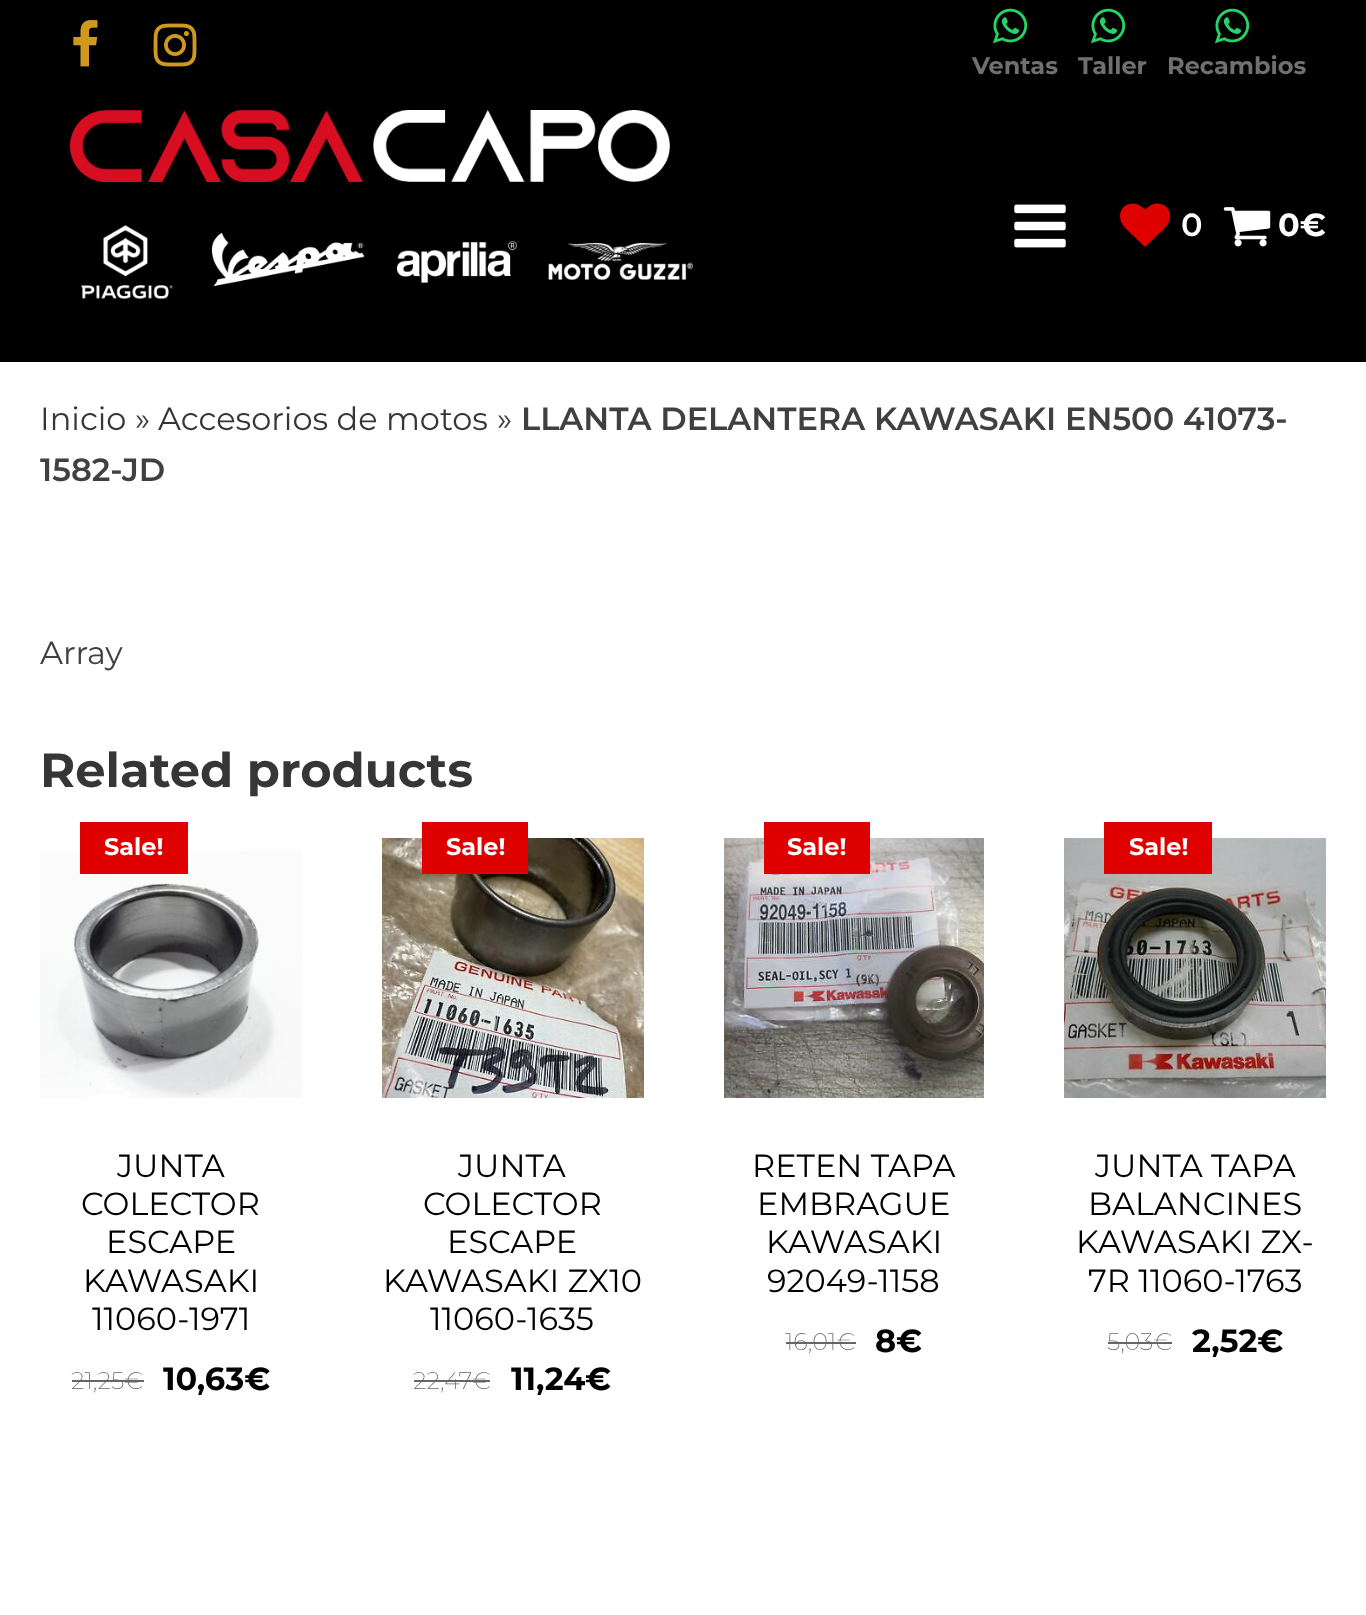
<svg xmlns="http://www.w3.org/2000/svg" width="1366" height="1615">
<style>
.a{font:bold 24px Montserrat;fill:#707070}
.b{font:600 32px Montserrat;fill:#fff}
.c{font:bold 32px Montserrat;fill:#fff}
.d{font:32px Montserrat;fill:#363636}
.e{font:32px Montserrat;fill:#404040}
.f{font:600 32px Montserrat;fill:#404040}
.g{font:bold 48px Montserrat;fill:#363636}
.h{font:bold 24px Montserrat;fill:#fff}
.i{font:32px Montserrat;fill:#000}
.j{font:200 24px Montserrat;fill:#666}
.k{font:bold 32px Montserrat;fill:#000}
</style>
<rect width="100%" height="100%" fill="#fff"/>
<path fill="#000" d="M0 0h1366v362H0z"/>
<image href="1.png" x="73" y="20" width="25" height="47"/>
<image href="2.png" x="153" y="23" width="44" height="44"/>
<image href="3.png" x="992" y="8" width="36" height="36"/>
<image href="3.png" x="1090" y="8" width="36" height="36"/>
<image href="3.png" x="1214" y="8" width="36" height="36"/>
<image href="4.png" x="70" y="110" width="600" height="72"/>
<image href="5.png" x="81" y="225" width="92" height="74"/>
<image href="6.png" x="211" y="233" width="154" height="53"/>
<image href="7.png" x="397" y="241" width="120" height="42"/>
<image href="8.png" x="548" y="243" width="145" height="37"/>
<image href="9.png" x="1014" y="204" width="52" height="44"/>
<image href="10.png" x="1120" y="203" width="50" height="44"/>
<image href="11.png" x="1223" y="207" width="48" height="40"/>
<image href="12.png" x="40" y="851" width="262" height="247"/>
<path fill="#df0000" d="M80 822h108v52H80z"/>
<path fill="#666" d="M72 1380h72v2H72z"/>
<image href="13.png" x="382" y="838" width="262" height="260"/>
<path fill="#df0000" d="M422 822h106v52H422z"/>
<path fill="#666" d="M414 1380h58v2H414z"/>
<path fill="#666" d="M472 1380h18v2H472z"/>
<image href="14.png" x="724" y="838" width="260" height="260"/>
<path fill="#df0000" d="M764 822h106v52H764z"/>
<path fill="#666" d="M786 1342h70v2H786z"/>
<image href="15.png" x="1064" y="838" width="262" height="260"/>
<path fill="#df0000" d="M1104 822h108v52H1104z"/>
<path fill="#666" d="M1108 1342h64v2H1108z"/>
<text class="a" x="972" y="74">Ventas</text>
<text class="a" x="1078" y="74">Taller</text>
<text class="a" x="1167" y="74">Recambios</text>
<text class="b" x="1181" y="236">0</text>
<text class="c" x="1278" y="236">0€</text>
<text class="d" x="40" y="430">Inicio</text>
<text class="e" x="135" y="430">»</text>
<text class="d" x="158" y="430">Accesorios de motos</text>
<text class="e" x="497" y="430">»</text>
<text class="f" x="521" y="430">LLANTA DELANTERA KAWASAKI EN500 41073-</text>
<text class="f" x="40" y="481">1582-JD</text>
<text class="e" x="40" y="664">Array</text>
<text class="g" x="40" y="787">Related products</text>
<text class="h" x="104" y="855">Sale!</text>
<text class="i" x="117" y="1177">JUNTA</text>
<text class="i" x="81" y="1215">COLECTOR</text>
<text class="i" x="106" y="1253">ESCAPE</text>
<text class="i" x="83" y="1292">KAWASAKI</text>
<text class="i" x="92" y="1330">11060-1971</text>
<text class="j" x="71" y="1389">21,25€</text>
<text class="k" x="163" y="1390">10,63€</text>
<text class="h" x="446" y="855">Sale!</text>
<text class="i" x="458" y="1177">JUNTA</text>
<text class="i" x="423" y="1215">COLECTOR</text>
<text class="i" x="447" y="1253">ESCAPE</text>
<text class="i" x="383" y="1292">KAWASAKI ZX10</text>
<text class="i" x="430" y="1330">11060-1635</text>
<text class="j" x="413" y="1389">22,47</text>
<text class="j" x="472" y="1389">€</text>
<text class="k" x="511" y="1390">11,24</text>
<text class="k" x="585" y="1390">€</text>
<text class="h" x="787" y="855">Sale!</text>
<text class="i" x="752" y="1177">RETEN TAPA</text>
<text class="i" x="757" y="1215">EMBRAGUE</text>
<text class="i" x="766" y="1253">KAWASAKI</text>
<text class="i" x="767" y="1292">92049-1158</text>
<text class="j" x="785" y="1350">16,01€</text>
<text class="k" x="875" y="1352">8€</text>
<text class="h" x="1129" y="855">Sale!</text>
<text class="i" x="1095" y="1177">JUNTA TAPA</text>
<text class="i" x="1088" y="1215">BALANCINES</text>
<text class="i" x="1076" y="1253">KAWASAKI ZX-</text>
<text class="i" x="1088" y="1292">7R 11060-1763</text>
<text class="j" x="1107" y="1350">5,03€</text>
<text class="k" x="1192" y="1352">2,52€</text>
</svg>
